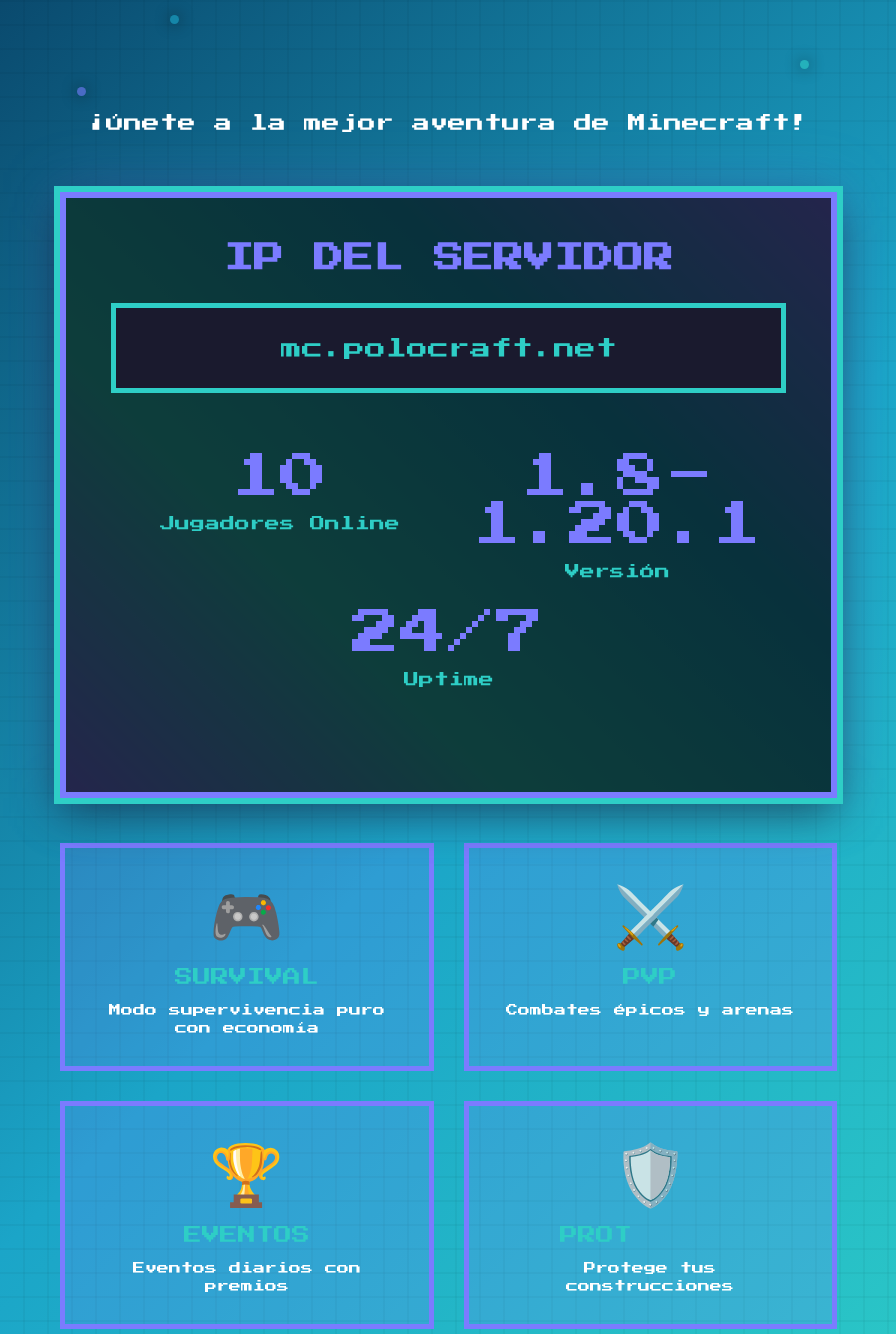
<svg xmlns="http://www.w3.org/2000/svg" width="896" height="1334">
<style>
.a{font:18px 'Press Start 2P';fill:#fff}
.b{font:bold 30px 'Press Start 2P';fill:#7b7bff}
.c{font:21px 'Press Start 2P';fill:#2ecec6}
.d{font:48px 'Press Start 2P';fill:#7b7bff}
.e{font:15px 'Press Start 2P';fill:#2ecec6}
.f{font:60px Noto Color Emoji;fill:#000}
.g{font:18px 'Press Start 2P';fill:#2ecec6}
.h{font:12px 'Press Start 2P';fill:#fff}
</style>
<defs>
<linearGradient id="g1" gradientUnits="userSpaceOnUse" x1="-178" y1="178" x2="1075" y2="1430"><stop offset="0" stop-color="#0a4a6e"/><stop offset="0.5" stop-color="#1ba5c8"/><stop offset="1" stop-color="#2ecec6"/></linearGradient>
<linearGradient id="g2" gradientUnits="userSpaceOnUse" x1="103" y1="841" x2="794" y2="149"><stop offset="0" stop-color="#7b7bff"/><stop offset="0.33" stop-color="#2ecec6"/><stop offset="0.67" stop-color="#1ba5c8"/><stop offset="1" stop-color="#7b7bff"/></linearGradient>
<clipPath id="clip1"><path d="M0 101h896v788h-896zm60 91h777v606h-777z" clip-rule="evenodd"/></clipPath>
<clipPath id="clip2"><path d="M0 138h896v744h-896zm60 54h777v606h-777z" clip-rule="evenodd"/></clipPath>
</defs>
<rect width="100%" height="100%" fill="#fff"/>
<path fill="url(#g1)" d="M0 0h896v1334H0z"/>
<image href="1.png" x="23" y="0" width="866" height="1334"/>
<image href="2.png" x="0" y="0" width="896" height="1322"/>
<rect fill="#00000096" filter="blur(7.5px)" x="170" y="15" width="9" height="9" rx="4.5"/>
<circle fill="#1586a9" cx="174.5" cy="19.5" r="4.5"/>
<rect fill="#0000008f" filter="blur(7.5px)" x="77" y="87" width="9" height="9" rx="4.5"/>
<circle fill="#4a6bc5" cx="81.5" cy="91.5" r="4.5"/>
<rect fill="#00000091" filter="blur(7.5px)" x="800" y="60" width="9" height="9" rx="4.5"/>
<circle fill="#24b1bb" cx="804.5" cy="64.5" r="4.5"/>
<path fill="url(#g2)" d="M66 198h765v594H66z"/>
<path fill="#7b7bff33" stroke="#7b7bff" stroke-width="5" d="M62.5 845.5h369v223H62.5z"/>
<path fill="#7b7bff33" stroke="#7b7bff" stroke-width="5" d="M466.5 845.5h368v223H466.5z"/>
<g clip-path="url(#clip1)">
<path fill="#7b7bff4d" filter="blur(30px)" d="M60 192h777v606H60z"/>
</g>
<g clip-path="url(#clip2)">
<path fill="#00000080" filter="blur(22.5px)" d="M60 207h777v606H60z"/>
</g>
<path fill="none" stroke="#2ecec6" stroke-width="6" d="M57 189h783v612H57z"/>
<path fill="#000000b3" stroke="#7b7bff" stroke-width="6" d="M63 195h771v600H63z"/>
<path fill="#1a1a2e" stroke="#2ecec6" stroke-width="5" d="M113.5 305.5h670v85H113.5z"/>
<path fill="#7b7bff33" stroke="#7b7bff" stroke-width="5" d="M62.5 1103.5h369v223H62.5z"/>
<path fill="#7b7bff33" stroke="#7b7bff" stroke-width="5" d="M466.5 1103.5h368v223H466.5z"/>
<text class="a" x="88" y="132">¡Únete a la mejor aventura de Minecraft!</text>
<text class="b" x="224" y="273">IP DEL SERVIDOR</text>
<text class="c" x="281" y="359">mc.polocraft.net</text>
<text class="d" x="232" y="501">10</text>
<text class="e" x="160" y="531">Jugadores Online</text>
<text class="d" x="521" y="501">1.8-</text>
<text class="d" x="473" y="549">1.20.1</text>
<text class="e" x="565" y="579">Versión</text>
<text class="d" x="352" y="657">24/7</text>
<text class="e" x="404" y="687">Uptime</text>
<text class="f" x="209" y="938">🎮</text>
<text class="g" x="175" y="986">SURVIVAL</text>
<text class="h" x="109" y="1016">Modo supervivencia puro</text>
<text class="h" x="175" y="1034">con economía</text>
<text class="f" x="613" y="938">⚔️</text>
<text class="g" x="623" y="986">PVP</text>
<text class="h" x="506" y="1016">Combates épicos y arenas</text>
<text class="f" x="209" y="1196">🏆</text>
<text class="g" x="184" y="1244">EVENTOS</text>
<text class="h" x="133" y="1274">Eventos diarios con</text>
<text class="h" x="205" y="1292">premios</text>
<text class="f" x="613" y="1196">🛡️</text>
<text class="g" x="560" y="1244">PROT</text>
<text class="h" x="584" y="1274">Protege tus</text>
<text class="h" x="566" y="1292">construcciones</text>
</svg>
